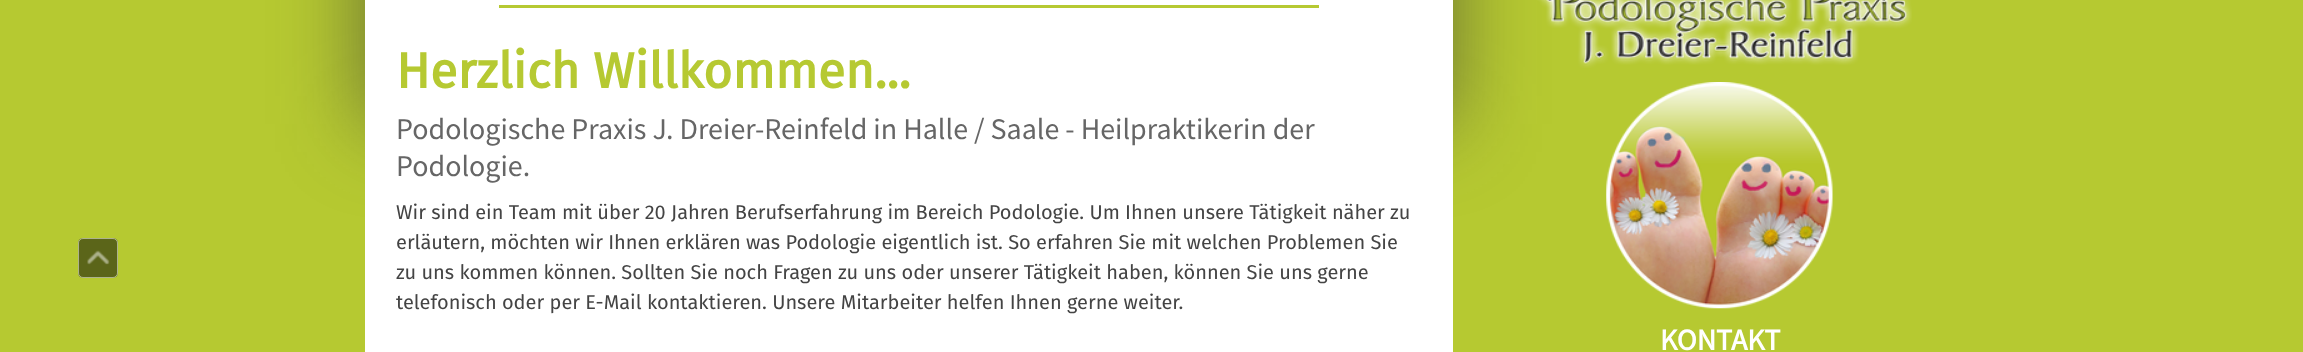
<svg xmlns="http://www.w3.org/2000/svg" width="2303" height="352">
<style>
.a{font:bold 50px Fira Sans;fill:#b6c932}
.b{font:30px Source Sans Pro;fill:#666}
.c{font:20px Fira Sans;fill:#444}
.d{font:bold 30px Source Sans Pro;fill:#fff}
</style>
<rect width="100%" height="100%" fill="#b6c931"/>
<rect fill="#5b6519" x="78" y="238" width="40" height="40" rx="5"/>
<rect fill="none" stroke="#ffffff80" x="78.5" y="238.5" width="39" height="39" rx="4.5"/>
<image href="1.png" x="87" y="250" width="23" height="15"/>
<path fill="#33333399" filter="blur(42.5px)" d="M364 -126h1089v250H364z"/>
<path fill="#fff" d="M365 0h1088v352H365z"/>
<path fill="#b6c932" d="M499 5h820v3H499z"/>
<image href="2.png" x="1537" y="0" width="375" height="68"/>
<image href="3.png" x="1606" y="82" width="227" height="227"/>
<text class="a" x="396" y="88">Herzlich Willkommen...</text>
<text class="b" x="396" y="139">Podologische Praxis J. Dreier-Reinfeld in Halle / Saale - Heilpraktikerin der</text>
<text class="b" x="396" y="176">Podologie.</text>
<text class="c" x="396" y="219">Wir sind ein Team mit über 20 Jahren Berufserfahrung im Bereich Podologie. Um Ihnen unsere Tätigkeit näher zu</text>
<text class="c" x="396" y="249">erläutern, möchten wir Ihnen erklären was Podologie eigentlich ist. So erfahren Sie mit welchen Problemen Sie</text>
<text class="c" x="396" y="279">zu uns kommen können. Sollten Sie noch Fragen zu uns oder unserer Tätigkeit haben, können Sie uns gerne</text>
<text class="c" x="396" y="309">telefonisch oder per E-Mail kontaktieren. Unsere Mitarbeiter helfen Ihnen gerne weiter.</text>
<text class="d" x="1660" y="350">KONTAKT</text>
</svg>
